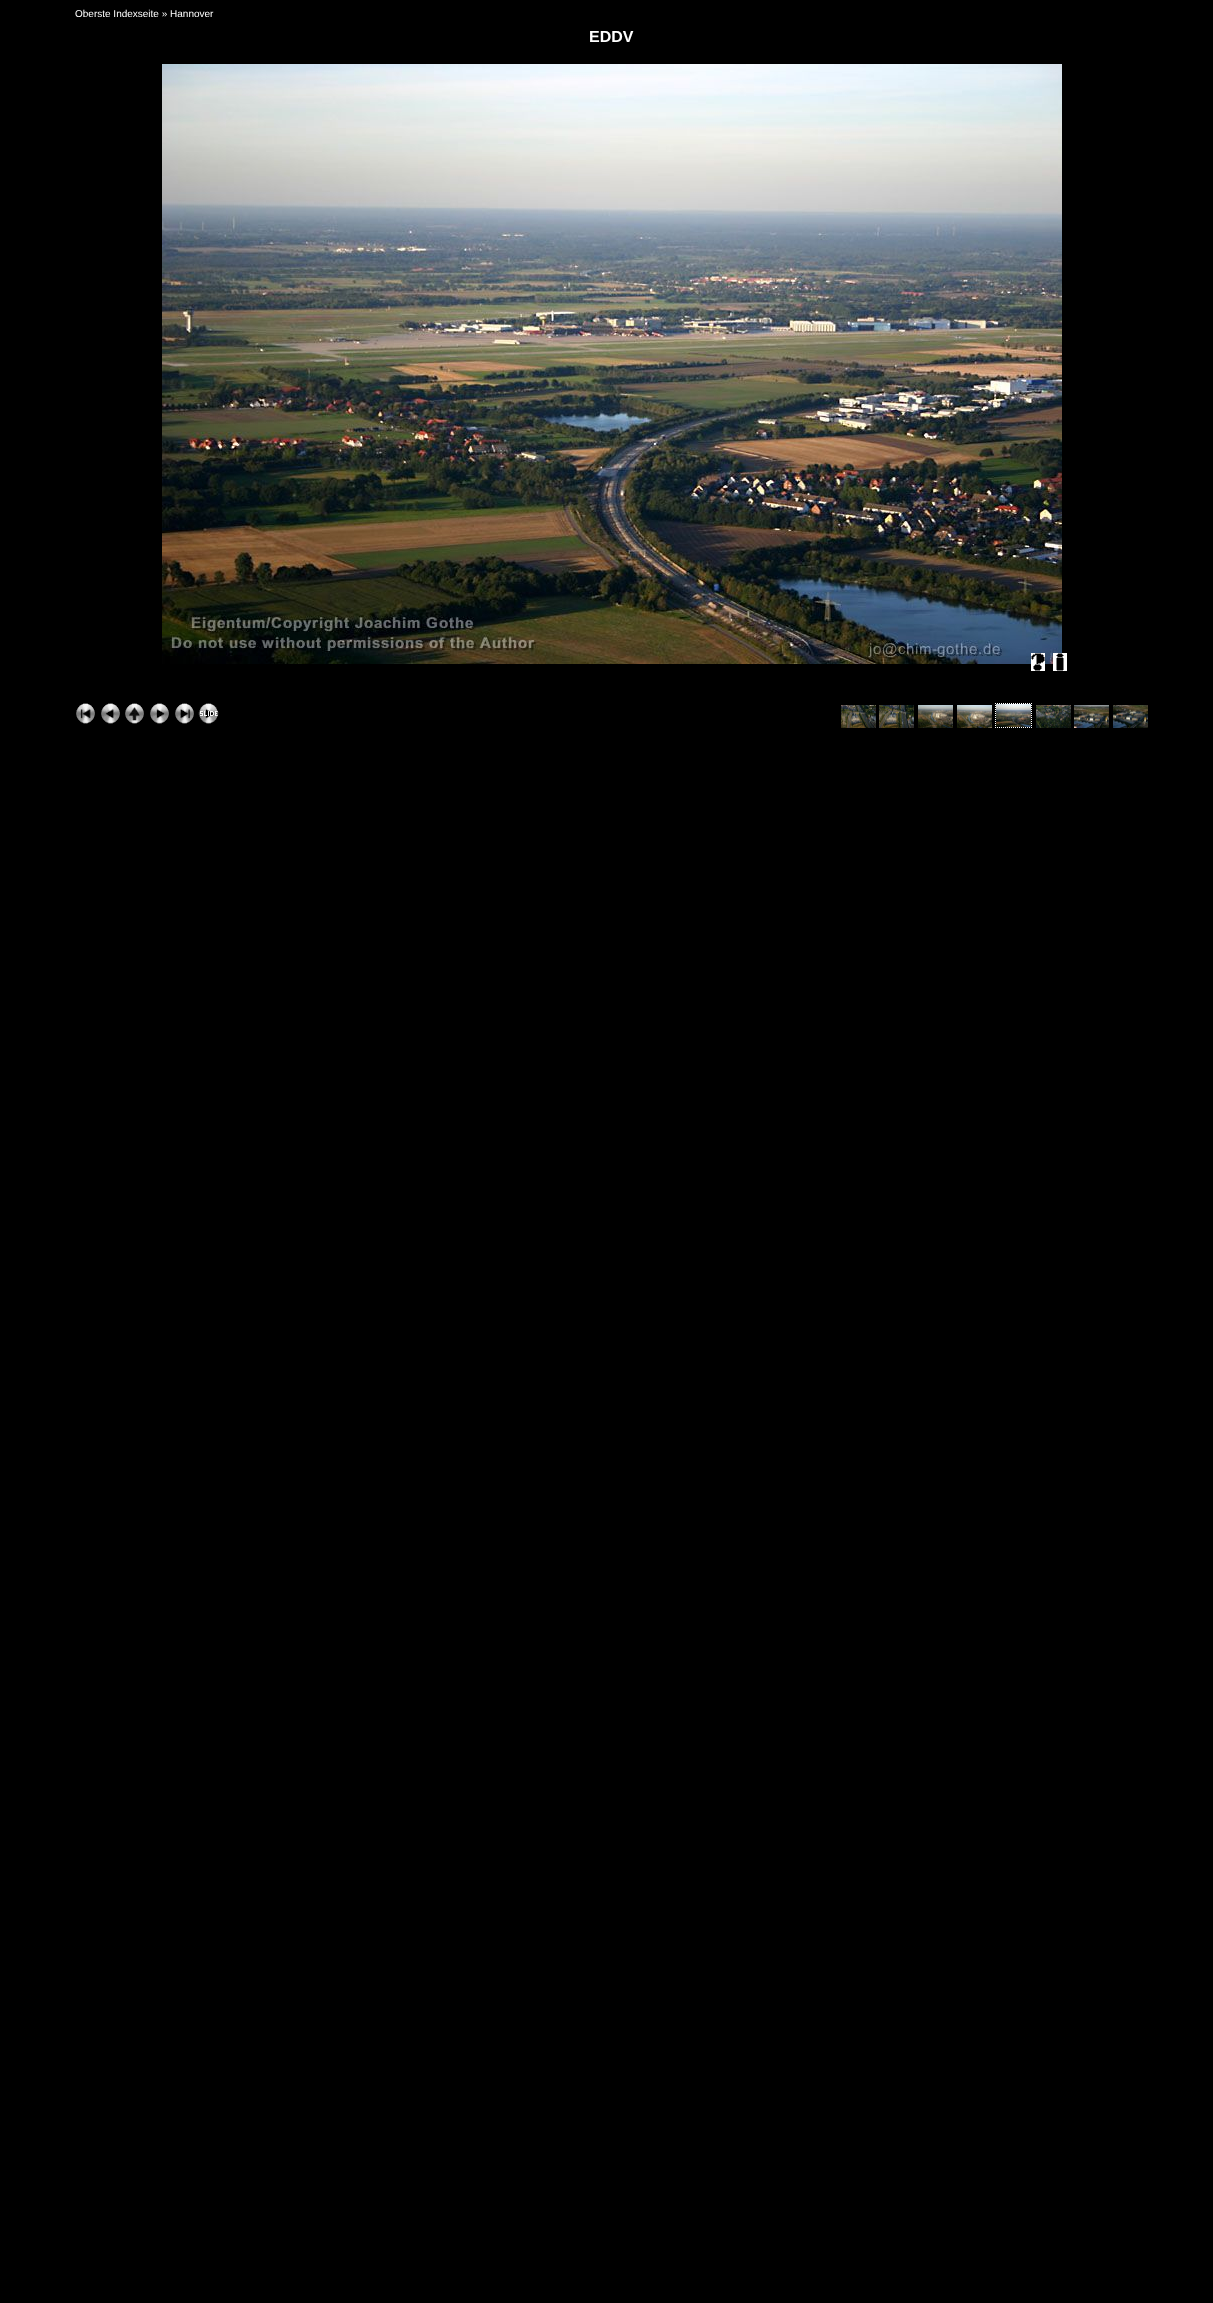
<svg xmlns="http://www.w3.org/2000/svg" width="1213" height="2303">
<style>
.a{font:10px Liberation Sans;fill:#fff}
.b{font:bold 16px Liberation Sans;fill:#fff}
</style>
<rect width="100%" height="100%" fill="#000"/>
<image href="1.png" x="162" y="64" width="900" height="600"/>
<image href="2.png" x="1031" y="653" width="14" height="18"/>
<image href="3.png" x="1053" y="653" width="14" height="18"/>
<image href="4.png" x="76" y="703" width="19" height="21"/>
<image href="5.png" x="101" y="703" width="19" height="21"/>
<image href="6.png" x="125" y="703" width="19" height="21"/>
<image href="7.png" x="150" y="703" width="19" height="21"/>
<image href="8.png" x="175" y="703" width="19" height="21"/>
<image href="9.png" x="198" y="703" width="21" height="21"/>
<path fill="none" stroke="#fff" stroke-dasharray="1 1" d="M995 703.5h37m-.5-.5v25m-36.5-.5h37m-36.5-24.5v25"/>
<image href="10.png" x="841" y="705" width="35" height="23"/>
<image href="11.png" x="879" y="705" width="35" height="23"/>
<image href="12.png" x="918" y="705" width="35" height="23"/>
<image href="13.png" x="957" y="705" width="35" height="23"/>
<image href="14.png" x="996" y="704" width="35" height="23"/>
<image href="15.png" x="1036" y="705" width="35" height="23"/>
<image href="16.png" x="1074" y="705" width="35" height="23"/>
<image href="17.png" x="1113" y="705" width="35" height="23"/>
<text class="a" x="75" y="17">Oberste Indexseite » Hannover</text>
<text class="b" x="589" y="42">EDDV</text>
</svg>
